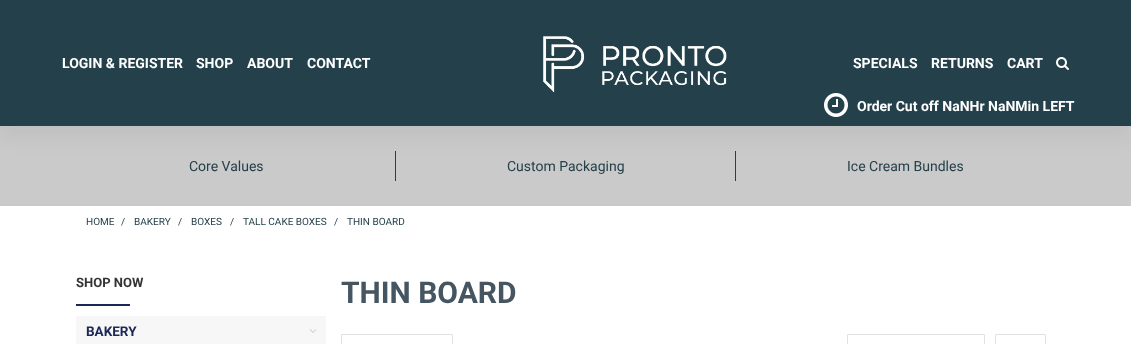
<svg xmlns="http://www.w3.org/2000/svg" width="1131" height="344">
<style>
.a{font:bold 14px Roboto;fill:#fff}
.b{font:14px Roboto;fill:#24404b}
.c{font:10px Roboto;fill:#24404b}
.d{font:bold 13px Roboto;fill:#333}
.e{font:bold 13.5px Roboto;fill:#1b2754}
.f{font:bold 30px Roboto;fill:#455562}
</style>
<rect width="100%" height="100%" fill="#fff"/>
<path fill="#cacaca" d="M0 126h1131v80H0z"/>
<path fill="#24404b" d="M395 151h1v30H395z"/>
<path fill="#24404b" d="M735 151h1v30H735z"/>
<path fill="#0000000d" filter="blur(10px)" d="M-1 9h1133v128H-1z"/>
<path fill="#24404b" d="M0 0h1131v126H0z"/>
<image href="1.png" x="543" y="36" width="184" height="57"/>
<image href="2.png" x="1056" y="57" width="13" height="13"/>
<image href="3.png" x="824" y="93" width="24" height="24"/>
<path fill="#1b2754" d="M76 304h54v2H76z"/>
<path fill="#f7f7f7" d="M76 316h250v28H76z"/>
<image href="4.png" x="309" y="329" width="8" height="4"/>
<path fill="none" stroke="#e1e1e1" d="M341.5 334.5h111v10H341.5z"/>
<path fill="none" stroke="#e1e1e1" d="M847.5 334.5h137v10H847.5z"/>
<path fill="none" stroke="#e1e1e1" d="M995.5 334.5h50v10H995.5z"/>
<text class="a" x="62" y="68">LOGIN &amp; REGISTER</text>
<text class="a" x="196" y="68">SHOP</text>
<text class="a" x="247" y="68">ABOUT</text>
<text class="a" x="307" y="68">CONTACT</text>
<text class="a" x="853" y="68">SPECIALS</text>
<text class="a" x="931" y="68">RETURNS</text>
<text class="a" x="1007" y="68">CART</text>
<text class="a" x="857" y="111">Order Cut off NaNHr NaNMin LEFT</text>
<text class="b" x="189" y="171">Core Values</text>
<text class="b" x="507" y="171">Custom Packaging</text>
<text class="b" x="847" y="171">Ice Cream Bundles</text>
<text class="c" x="86" y="225">HOME</text>
<text class="c" x="121" y="225">/</text>
<text class="c" x="134" y="225">BAKERY</text>
<text class="c" x="178" y="225">/</text>
<text class="c" x="191" y="225">BOXES</text>
<text class="c" x="230" y="225">/</text>
<text class="c" x="243" y="225">TALL CAKE BOXES</text>
<text class="c" x="334" y="225">/</text>
<text class="c" x="347" y="225">THIN BOARD</text>
<text class="d" x="76" y="287">SHOP NOW</text>
<text class="e" x="86" y="336">BAKERY</text>
<text class="f" x="341" y="303">THIN BOARD</text>
</svg>
